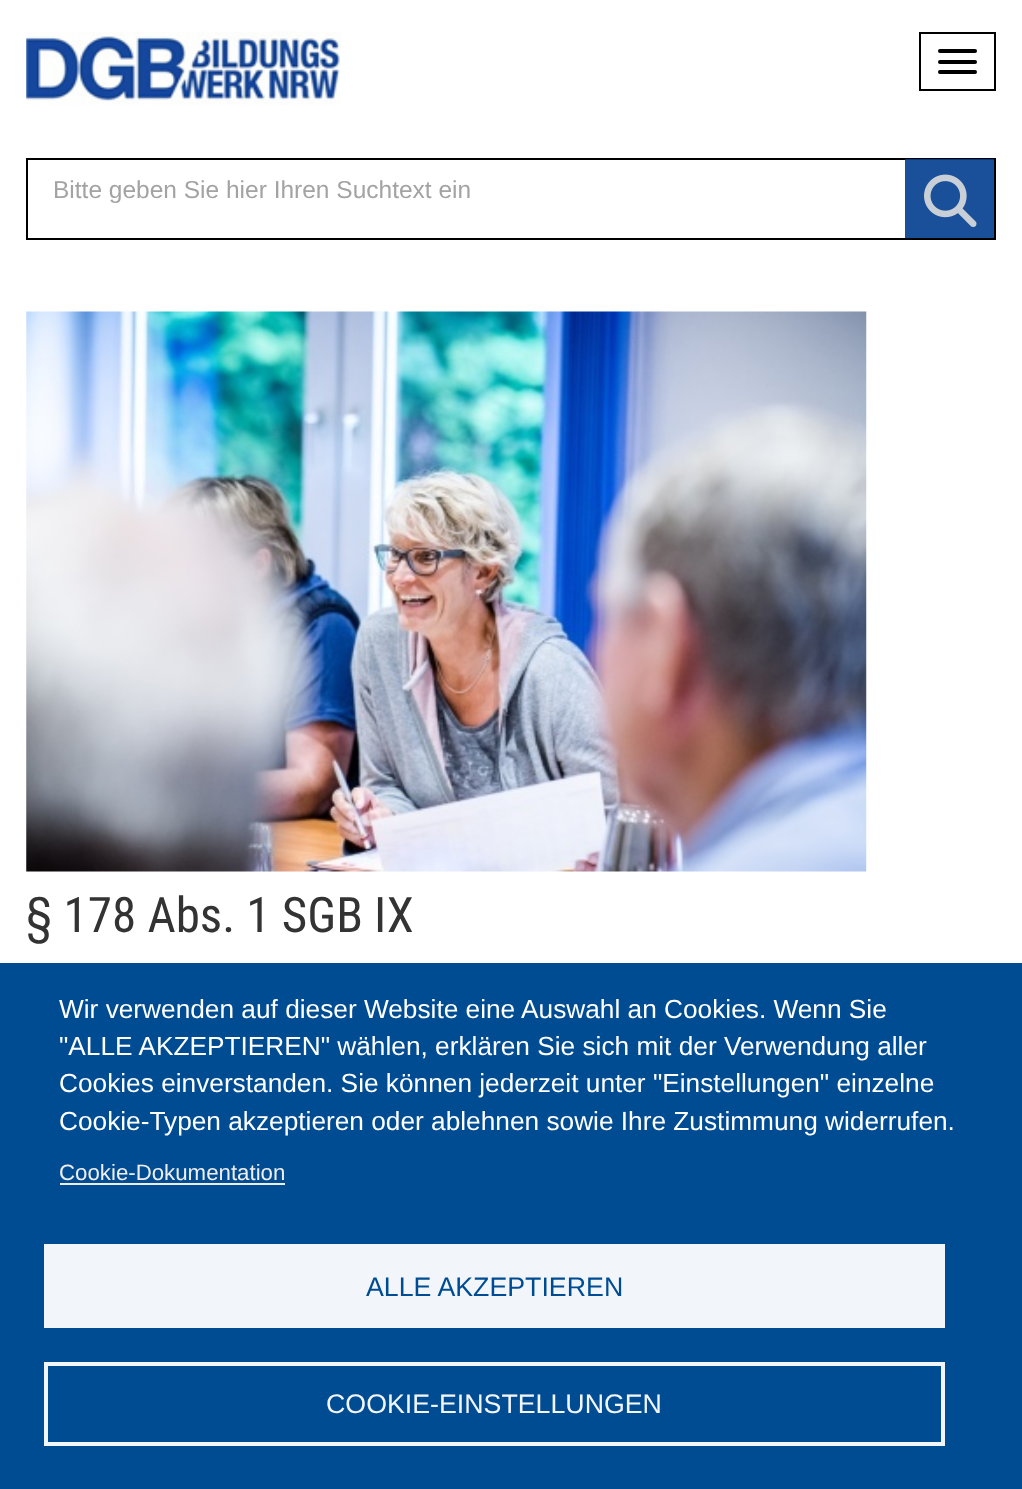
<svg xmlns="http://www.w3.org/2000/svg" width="1022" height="1489">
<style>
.a{font:24.5px Liberation Sans;fill:#a3a3a3}
.b{font:49px Roboto Condensed;fill:#333}
.c{font:26.25px Liberation Sans;fill:#fff}
.d{font:22.25px Liberation Sans;fill:#eee}
.e{font:26.75px Liberation Sans;fill:#004c93}
.f{font:26.75px Liberation Sans;fill:#f2f6fa}
</style>
<rect width="100%" height="100%" fill="#fff"/>
<image href="1.png" x="26" y="31" width="315" height="75"/>
<path fill="none" stroke="#000" stroke-width="2" d="M920 33h75v57H920z"/>
<rect fill="#000" x="938" y="49" width="39" height="4" rx="2"/>
<rect fill="#000" x="938" y="60" width="39" height="4" rx="2"/>
<rect fill="#000" x="938" y="70" width="39" height="4" rx="2"/>
<path fill="none" stroke="#000" stroke-width="2" d="M27 159h968v80H27z"/>
<path fill="#003d8ee6" d="M905 159h89v79H905z"/>
<image href="2.png" x="924" y="174" width="53" height="53"/>
<image href="3.png" x="26" y="311" width="841" height="561"/>
<path fill="#004c93" d="M0 963h1022v526H0z"/>
<path fill="#eee" d="M60 1183h225v2H60z"/>
<path fill="#f2f6fa" d="M44 1244h901v84H44z"/>
<path fill="none" stroke="#f2f6fa" stroke-width="4" d="M46 1364h897v80H46z"/>
<text class="a" x="53" y="198">Bitte geben Sie hier Ihren Suchtext ein</text>
<text class="b" x="26" y="932">§ 178 Abs. 1 SGB IX</text>
<text class="c" x="59" y="1018">Wir verwenden auf dieser Website eine Auswahl an Cookies. Wenn Sie</text>
<text class="c" x="59" y="1055">"ALLE AKZEPTIEREN" wählen, erklären Sie sich mit der Verwendung aller</text>
<text class="c" x="59" y="1092">Cookies einverstanden. Sie können jederzeit unter "Einstellungen" einzelne</text>
<text class="c" x="59" y="1130">Cookie-Typen akzeptieren oder ablehnen sowie Ihre Zustimmung widerrufen.</text>
<text class="d" x="59" y="1180">Cookie-Dokumentation</text>
<text class="e" x="366" y="1296">ALLE AKZEPTIEREN</text>
<text class="f" x="326" y="1413">COOKIE-EINSTELLUNGEN</text>
</svg>
